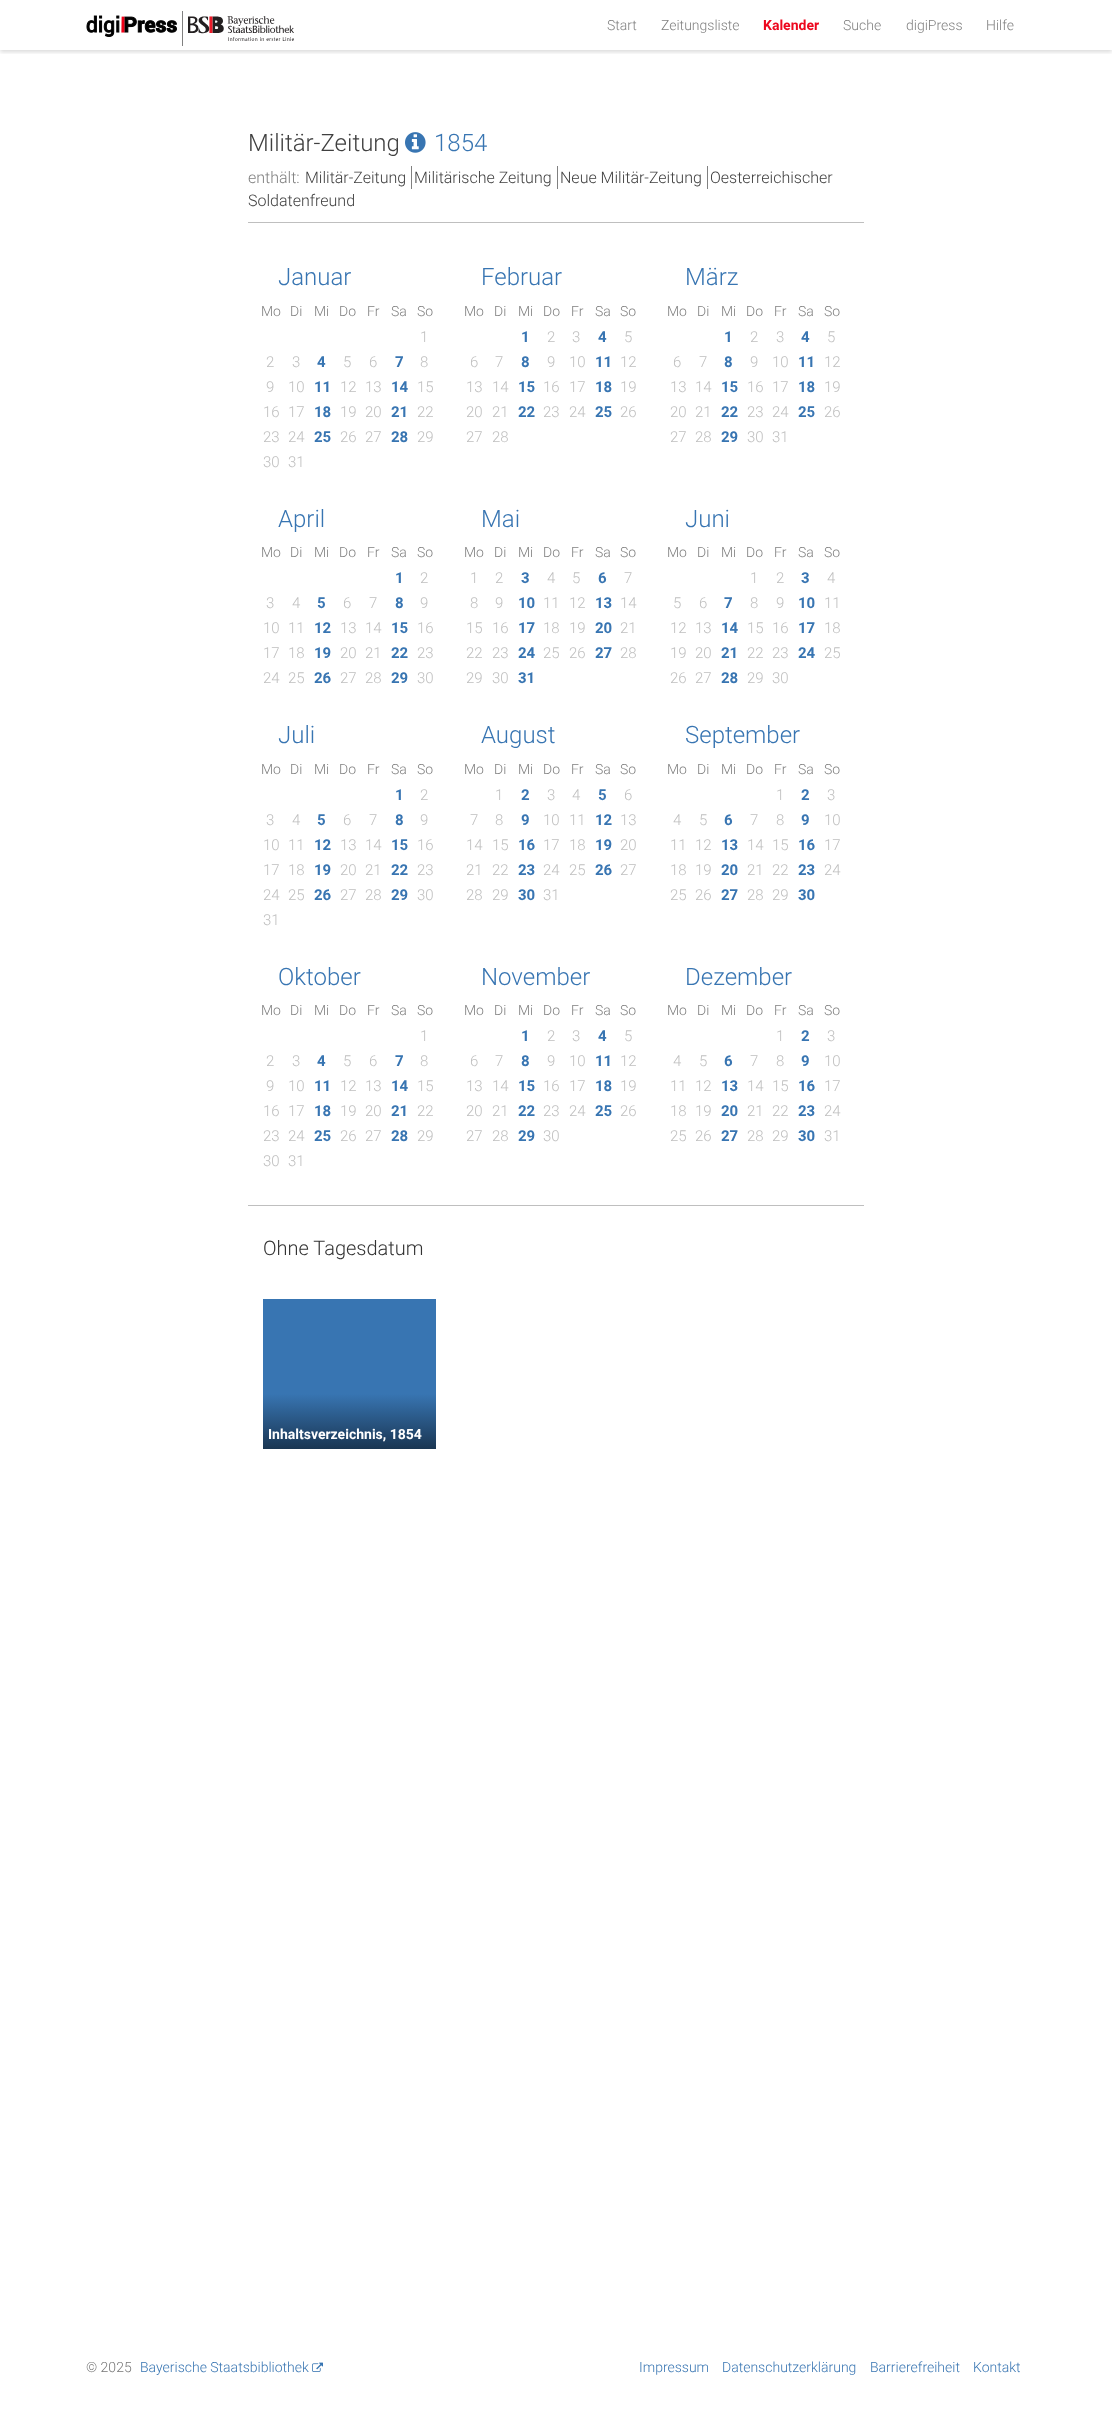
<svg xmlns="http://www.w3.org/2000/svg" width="1112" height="2414">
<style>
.a{font:300 14px Roboto;fill:#808080}
.b{font:bold 14px Roboto;fill:#ed071e}
.c{font:300 24px Roboto;fill:#404040}
.d{font:300 24px Roboto;fill:#3875b2}
.e{font:300 16px Roboto;fill:#808080}
.f{font:300 16px Roboto;fill:#404040}
.g{font:300 15px Roboto;fill:#bfbfbf}
.h{font:bold 15px Roboto;fill:#3875b2}
.i{font:300 20px Roboto;fill:#333}
.j{font:bold 14px Roboto;fill:#fff}
.k{font:300 14px Roboto;fill:#777}
.l{font:300 14px Roboto;fill:#3875b2}
</style>
<defs>
<clipPath id="clip1"><path d="M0 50h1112v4H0z"/></clipPath>
<linearGradient id="g1" gradientUnits="userSpaceOnUse" x1="350" y1="1394" x2="350" y2="1449"><stop offset="0" stop-color="#3875b2"/><stop offset="0.43" stop-color="#2b5a89"/><stop offset="0.73" stop-color="#22476d"/><stop offset="1" stop-color="#1a3652"/></linearGradient>
</defs>
<rect width="100%" height="100%" fill="#fff"/>
<g clip-path="url(#clip1)">
<path fill="#00000026" filter="blur(2px)" d="M0 2h1112v50H0z"/>
</g>
<image href="1.png" x="86" y="15" width="91" height="22"/>
<path fill="#808080" d="M182 11h1v35H182z"/>
<image href="2.png" x="188" y="16" width="106" height="25"/>
<image href="3.png" x="405" y="132" width="21" height="21"/>
<path fill="#808080" d="M411 166h1v23H411z"/>
<path fill="#808080" d="M557 166h1v23H557z"/>
<path fill="#808080" d="M707 166h1v23H707z"/>
<path fill="#bfbfbf" d="M248 222h616v1H248z"/>
<path fill="#bfbfbf" d="M248 1205h616v1H248z"/>
<path fill="#3875b2" d="M263 1299h173v95H263z"/>
<path fill="url(#g1)" d="M263 1394h173v55H263z"/>
<image href="4.png" x="312" y="2362" width="11" height="10"/>
<text class="a" x="607" y="30">Start</text>
<text class="a" x="661" y="30">Zeitungsliste</text>
<text class="b" x="763" y="30">Kalender</text>
<text class="a" x="843" y="30">Suche</text>
<text class="a" x="906" y="30">digiPress</text>
<text class="a" x="986" y="30">Hilfe</text>
<text class="c" x="248" y="151">Militär-Zeitung</text>
<text class="d" x="434" y="151">1854</text>
<text class="e" x="248" y="183">enthält:</text>
<text class="f" x="305" y="183">Militär-Zeitung</text>
<text class="f" x="414" y="183">Militärische Zeitung</text>
<text class="f" x="560" y="183">Neue Militär-Zeitung</text>
<text class="f" x="710" y="183">Oesterreichischer</text>
<text class="f" x="248" y="206">Soldatenfreund</text>
<text class="d" x="278" y="285">Januar</text>
<text class="a" x="261" y="316">Mo</text>
<text class="a" x="290" y="316">Di</text>
<text class="a" x="314" y="316">Mi</text>
<text class="a" x="339" y="316">Do</text>
<text class="a" x="367" y="316">Fr</text>
<text class="a" x="391" y="316">Sa</text>
<text class="a" x="417" y="316">So</text>
<text class="g" x="420" y="342">1</text>
<text class="g" x="266" y="367">2</text>
<text class="g" x="292" y="367">3</text>
<text class="h" x="317" y="367">4</text>
<text class="g" x="343" y="367">5</text>
<text class="g" x="369" y="367">6</text>
<text class="h" x="395" y="367">7</text>
<text class="g" x="420" y="367">8</text>
<text class="g" x="266" y="392">9</text>
<text class="g" x="288" y="392">10</text>
<text class="h" x="314" y="392">11</text>
<text class="g" x="340" y="392">12</text>
<text class="g" x="365" y="392">13</text>
<text class="h" x="391" y="392">14</text>
<text class="g" x="417" y="392">15</text>
<text class="g" x="263" y="417">16</text>
<text class="g" x="288" y="417">17</text>
<text class="h" x="314" y="417">18</text>
<text class="g" x="340" y="417">19</text>
<text class="g" x="365" y="417">20</text>
<text class="h" x="391" y="417">21</text>
<text class="g" x="417" y="417">22</text>
<text class="g" x="263" y="442">23</text>
<text class="g" x="288" y="442">24</text>
<text class="h" x="314" y="442">25</text>
<text class="g" x="340" y="442">26</text>
<text class="g" x="365" y="442">27</text>
<text class="h" x="391" y="442">28</text>
<text class="g" x="417" y="442">29</text>
<text class="g" x="263" y="467">30</text>
<text class="g" x="288" y="467">31</text>
<text class="d" x="481" y="285">Februar</text>
<text class="a" x="464" y="316">Mo</text>
<text class="a" x="494" y="316">Di</text>
<text class="a" x="518" y="316">Mi</text>
<text class="a" x="543" y="316">Do</text>
<text class="a" x="571" y="316">Fr</text>
<text class="a" x="595" y="316">Sa</text>
<text class="a" x="620" y="316">So</text>
<text class="h" x="521" y="342">1</text>
<text class="g" x="547" y="342">2</text>
<text class="g" x="572" y="342">3</text>
<text class="h" x="598" y="342">4</text>
<text class="g" x="624" y="342">5</text>
<text class="g" x="470" y="367">6</text>
<text class="g" x="495" y="367">7</text>
<text class="h" x="521" y="367">8</text>
<text class="g" x="547" y="367">9</text>
<text class="g" x="569" y="367">10</text>
<text class="h" x="595" y="367">11</text>
<text class="g" x="620" y="367">12</text>
<text class="g" x="466" y="392">13</text>
<text class="g" x="492" y="392">14</text>
<text class="h" x="518" y="392">15</text>
<text class="g" x="543" y="392">16</text>
<text class="g" x="569" y="392">17</text>
<text class="h" x="595" y="392">18</text>
<text class="g" x="620" y="392">19</text>
<text class="g" x="466" y="417">20</text>
<text class="g" x="492" y="417">21</text>
<text class="h" x="518" y="417">22</text>
<text class="g" x="543" y="417">23</text>
<text class="g" x="569" y="417">24</text>
<text class="h" x="595" y="417">25</text>
<text class="g" x="620" y="417">26</text>
<text class="g" x="466" y="442">27</text>
<text class="g" x="492" y="442">28</text>
<text class="d" x="685" y="285">März</text>
<text class="a" x="667" y="316">Mo</text>
<text class="a" x="697" y="316">Di</text>
<text class="a" x="721" y="316">Mi</text>
<text class="a" x="746" y="316">Do</text>
<text class="a" x="774" y="316">Fr</text>
<text class="a" x="798" y="316">Sa</text>
<text class="a" x="824" y="316">So</text>
<text class="h" x="724" y="342">1</text>
<text class="g" x="750" y="342">2</text>
<text class="g" x="776" y="342">3</text>
<text class="h" x="801" y="342">4</text>
<text class="g" x="827" y="342">5</text>
<text class="g" x="673" y="367">6</text>
<text class="g" x="699" y="367">7</text>
<text class="h" x="724" y="367">8</text>
<text class="g" x="750" y="367">9</text>
<text class="g" x="772" y="367">10</text>
<text class="h" x="798" y="367">11</text>
<text class="g" x="824" y="367">12</text>
<text class="g" x="670" y="392">13</text>
<text class="g" x="695" y="392">14</text>
<text class="h" x="721" y="392">15</text>
<text class="g" x="747" y="392">16</text>
<text class="g" x="772" y="392">17</text>
<text class="h" x="798" y="392">18</text>
<text class="g" x="824" y="392">19</text>
<text class="g" x="670" y="417">20</text>
<text class="g" x="695" y="417">21</text>
<text class="h" x="721" y="417">22</text>
<text class="g" x="747" y="417">23</text>
<text class="g" x="772" y="417">24</text>
<text class="h" x="798" y="417">25</text>
<text class="g" x="824" y="417">26</text>
<text class="g" x="670" y="442">27</text>
<text class="g" x="695" y="442">28</text>
<text class="h" x="721" y="442">29</text>
<text class="g" x="747" y="442">30</text>
<text class="g" x="772" y="442">31</text>
<text class="d" x="278" y="527">April</text>
<text class="a" x="261" y="557">Mo</text>
<text class="a" x="290" y="557">Di</text>
<text class="a" x="314" y="557">Mi</text>
<text class="a" x="339" y="557">Do</text>
<text class="a" x="367" y="557">Fr</text>
<text class="a" x="391" y="557">Sa</text>
<text class="a" x="417" y="557">So</text>
<text class="h" x="395" y="583">1</text>
<text class="g" x="420" y="583">2</text>
<text class="g" x="266" y="608">3</text>
<text class="g" x="292" y="608">4</text>
<text class="h" x="317" y="608">5</text>
<text class="g" x="343" y="608">6</text>
<text class="g" x="369" y="608">7</text>
<text class="h" x="395" y="608">8</text>
<text class="g" x="420" y="608">9</text>
<text class="g" x="263" y="633">10</text>
<text class="g" x="288" y="633">11</text>
<text class="h" x="314" y="633">12</text>
<text class="g" x="340" y="633">13</text>
<text class="g" x="365" y="633">14</text>
<text class="h" x="391" y="633">15</text>
<text class="g" x="417" y="633">16</text>
<text class="g" x="263" y="658">17</text>
<text class="g" x="288" y="658">18</text>
<text class="h" x="314" y="658">19</text>
<text class="g" x="340" y="658">20</text>
<text class="g" x="365" y="658">21</text>
<text class="h" x="391" y="658">22</text>
<text class="g" x="417" y="658">23</text>
<text class="g" x="263" y="683">24</text>
<text class="g" x="288" y="683">25</text>
<text class="h" x="314" y="683">26</text>
<text class="g" x="340" y="683">27</text>
<text class="g" x="365" y="683">28</text>
<text class="h" x="391" y="683">29</text>
<text class="g" x="417" y="683">30</text>
<text class="d" x="481" y="527">Mai</text>
<text class="a" x="464" y="557">Mo</text>
<text class="a" x="494" y="557">Di</text>
<text class="a" x="518" y="557">Mi</text>
<text class="a" x="543" y="557">Do</text>
<text class="a" x="571" y="557">Fr</text>
<text class="a" x="595" y="557">Sa</text>
<text class="a" x="620" y="557">So</text>
<text class="g" x="470" y="583">1</text>
<text class="g" x="495" y="583">2</text>
<text class="h" x="521" y="583">3</text>
<text class="g" x="547" y="583">4</text>
<text class="g" x="572" y="583">5</text>
<text class="h" x="598" y="583">6</text>
<text class="g" x="624" y="583">7</text>
<text class="g" x="470" y="608">8</text>
<text class="g" x="495" y="608">9</text>
<text class="h" x="518" y="608">10</text>
<text class="g" x="543" y="608">11</text>
<text class="g" x="569" y="608">12</text>
<text class="h" x="595" y="608">13</text>
<text class="g" x="620" y="608">14</text>
<text class="g" x="466" y="633">15</text>
<text class="g" x="492" y="633">16</text>
<text class="h" x="518" y="633">17</text>
<text class="g" x="543" y="633">18</text>
<text class="g" x="569" y="633">19</text>
<text class="h" x="595" y="633">20</text>
<text class="g" x="620" y="633">21</text>
<text class="g" x="466" y="658">22</text>
<text class="g" x="492" y="658">23</text>
<text class="h" x="518" y="658">24</text>
<text class="g" x="543" y="658">25</text>
<text class="g" x="569" y="658">26</text>
<text class="h" x="595" y="658">27</text>
<text class="g" x="620" y="658">28</text>
<text class="g" x="466" y="683">29</text>
<text class="g" x="492" y="683">30</text>
<text class="h" x="518" y="683">31</text>
<text class="d" x="685" y="527">Juni</text>
<text class="a" x="667" y="557">Mo</text>
<text class="a" x="697" y="557">Di</text>
<text class="a" x="721" y="557">Mi</text>
<text class="a" x="746" y="557">Do</text>
<text class="a" x="774" y="557">Fr</text>
<text class="a" x="798" y="557">Sa</text>
<text class="a" x="824" y="557">So</text>
<text class="g" x="750" y="583">1</text>
<text class="g" x="776" y="583">2</text>
<text class="h" x="801" y="583">3</text>
<text class="g" x="827" y="583">4</text>
<text class="g" x="673" y="608">5</text>
<text class="g" x="699" y="608">6</text>
<text class="h" x="724" y="608">7</text>
<text class="g" x="750" y="608">8</text>
<text class="g" x="776" y="608">9</text>
<text class="h" x="798" y="608">10</text>
<text class="g" x="824" y="608">11</text>
<text class="g" x="670" y="633">12</text>
<text class="g" x="695" y="633">13</text>
<text class="h" x="721" y="633">14</text>
<text class="g" x="747" y="633">15</text>
<text class="g" x="772" y="633">16</text>
<text class="h" x="798" y="633">17</text>
<text class="g" x="824" y="633">18</text>
<text class="g" x="670" y="658">19</text>
<text class="g" x="695" y="658">20</text>
<text class="h" x="721" y="658">21</text>
<text class="g" x="747" y="658">22</text>
<text class="g" x="772" y="658">23</text>
<text class="h" x="798" y="658">24</text>
<text class="g" x="824" y="658">25</text>
<text class="g" x="670" y="683">26</text>
<text class="g" x="695" y="683">27</text>
<text class="h" x="721" y="683">28</text>
<text class="g" x="747" y="683">29</text>
<text class="g" x="772" y="683">30</text>
<text class="d" x="278" y="743">Juli</text>
<text class="a" x="261" y="774">Mo</text>
<text class="a" x="290" y="774">Di</text>
<text class="a" x="314" y="774">Mi</text>
<text class="a" x="339" y="774">Do</text>
<text class="a" x="367" y="774">Fr</text>
<text class="a" x="391" y="774">Sa</text>
<text class="a" x="417" y="774">So</text>
<text class="h" x="395" y="800">1</text>
<text class="g" x="420" y="800">2</text>
<text class="g" x="266" y="825">3</text>
<text class="g" x="292" y="825">4</text>
<text class="h" x="317" y="825">5</text>
<text class="g" x="343" y="825">6</text>
<text class="g" x="369" y="825">7</text>
<text class="h" x="395" y="825">8</text>
<text class="g" x="420" y="825">9</text>
<text class="g" x="263" y="850">10</text>
<text class="g" x="288" y="850">11</text>
<text class="h" x="314" y="850">12</text>
<text class="g" x="340" y="850">13</text>
<text class="g" x="365" y="850">14</text>
<text class="h" x="391" y="850">15</text>
<text class="g" x="417" y="850">16</text>
<text class="g" x="263" y="875">17</text>
<text class="g" x="288" y="875">18</text>
<text class="h" x="314" y="875">19</text>
<text class="g" x="340" y="875">20</text>
<text class="g" x="365" y="875">21</text>
<text class="h" x="391" y="875">22</text>
<text class="g" x="417" y="875">23</text>
<text class="g" x="263" y="900">24</text>
<text class="g" x="288" y="900">25</text>
<text class="h" x="314" y="900">26</text>
<text class="g" x="340" y="900">27</text>
<text class="g" x="365" y="900">28</text>
<text class="h" x="391" y="900">29</text>
<text class="g" x="417" y="900">30</text>
<text class="g" x="263" y="925">31</text>
<text class="d" x="481" y="743">August</text>
<text class="a" x="464" y="774">Mo</text>
<text class="a" x="494" y="774">Di</text>
<text class="a" x="518" y="774">Mi</text>
<text class="a" x="543" y="774">Do</text>
<text class="a" x="571" y="774">Fr</text>
<text class="a" x="595" y="774">Sa</text>
<text class="a" x="620" y="774">So</text>
<text class="g" x="495" y="800">1</text>
<text class="h" x="521" y="800">2</text>
<text class="g" x="547" y="800">3</text>
<text class="g" x="572" y="800">4</text>
<text class="h" x="598" y="800">5</text>
<text class="g" x="624" y="800">6</text>
<text class="g" x="470" y="825">7</text>
<text class="g" x="495" y="825">8</text>
<text class="h" x="521" y="825">9</text>
<text class="g" x="543" y="825">10</text>
<text class="g" x="569" y="825">11</text>
<text class="h" x="595" y="825">12</text>
<text class="g" x="620" y="825">13</text>
<text class="g" x="466" y="850">14</text>
<text class="g" x="492" y="850">15</text>
<text class="h" x="518" y="850">16</text>
<text class="g" x="543" y="850">17</text>
<text class="g" x="569" y="850">18</text>
<text class="h" x="595" y="850">19</text>
<text class="g" x="620" y="850">20</text>
<text class="g" x="466" y="875">21</text>
<text class="g" x="492" y="875">22</text>
<text class="h" x="518" y="875">23</text>
<text class="g" x="543" y="875">24</text>
<text class="g" x="569" y="875">25</text>
<text class="h" x="595" y="875">26</text>
<text class="g" x="620" y="875">27</text>
<text class="g" x="466" y="900">28</text>
<text class="g" x="492" y="900">29</text>
<text class="h" x="518" y="900">30</text>
<text class="g" x="543" y="900">31</text>
<text class="d" x="685" y="743">September</text>
<text class="a" x="667" y="774">Mo</text>
<text class="a" x="697" y="774">Di</text>
<text class="a" x="721" y="774">Mi</text>
<text class="a" x="746" y="774">Do</text>
<text class="a" x="774" y="774">Fr</text>
<text class="a" x="798" y="774">Sa</text>
<text class="a" x="824" y="774">So</text>
<text class="g" x="776" y="800">1</text>
<text class="h" x="801" y="800">2</text>
<text class="g" x="827" y="800">3</text>
<text class="g" x="673" y="825">4</text>
<text class="g" x="699" y="825">5</text>
<text class="h" x="724" y="825">6</text>
<text class="g" x="750" y="825">7</text>
<text class="g" x="776" y="825">8</text>
<text class="h" x="801" y="825">9</text>
<text class="g" x="824" y="825">10</text>
<text class="g" x="670" y="850">11</text>
<text class="g" x="695" y="850">12</text>
<text class="h" x="721" y="850">13</text>
<text class="g" x="747" y="850">14</text>
<text class="g" x="772" y="850">15</text>
<text class="h" x="798" y="850">16</text>
<text class="g" x="824" y="850">17</text>
<text class="g" x="670" y="875">18</text>
<text class="g" x="695" y="875">19</text>
<text class="h" x="721" y="875">20</text>
<text class="g" x="747" y="875">21</text>
<text class="g" x="772" y="875">22</text>
<text class="h" x="798" y="875">23</text>
<text class="g" x="824" y="875">24</text>
<text class="g" x="670" y="900">25</text>
<text class="g" x="695" y="900">26</text>
<text class="h" x="721" y="900">27</text>
<text class="g" x="747" y="900">28</text>
<text class="g" x="772" y="900">29</text>
<text class="h" x="798" y="900">30</text>
<text class="d" x="278" y="985">Oktober</text>
<text class="a" x="261" y="1015">Mo</text>
<text class="a" x="290" y="1015">Di</text>
<text class="a" x="314" y="1015">Mi</text>
<text class="a" x="339" y="1015">Do</text>
<text class="a" x="367" y="1015">Fr</text>
<text class="a" x="391" y="1015">Sa</text>
<text class="a" x="417" y="1015">So</text>
<text class="g" x="420" y="1041">1</text>
<text class="g" x="266" y="1066">2</text>
<text class="g" x="292" y="1066">3</text>
<text class="h" x="317" y="1066">4</text>
<text class="g" x="343" y="1066">5</text>
<text class="g" x="369" y="1066">6</text>
<text class="h" x="395" y="1066">7</text>
<text class="g" x="420" y="1066">8</text>
<text class="g" x="266" y="1091">9</text>
<text class="g" x="288" y="1091">10</text>
<text class="h" x="314" y="1091">11</text>
<text class="g" x="340" y="1091">12</text>
<text class="g" x="365" y="1091">13</text>
<text class="h" x="391" y="1091">14</text>
<text class="g" x="417" y="1091">15</text>
<text class="g" x="263" y="1116">16</text>
<text class="g" x="288" y="1116">17</text>
<text class="h" x="314" y="1116">18</text>
<text class="g" x="340" y="1116">19</text>
<text class="g" x="365" y="1116">20</text>
<text class="h" x="391" y="1116">21</text>
<text class="g" x="417" y="1116">22</text>
<text class="g" x="263" y="1141">23</text>
<text class="g" x="288" y="1141">24</text>
<text class="h" x="314" y="1141">25</text>
<text class="g" x="340" y="1141">26</text>
<text class="g" x="365" y="1141">27</text>
<text class="h" x="391" y="1141">28</text>
<text class="g" x="417" y="1141">29</text>
<text class="g" x="263" y="1166">30</text>
<text class="g" x="288" y="1166">31</text>
<text class="d" x="481" y="985">November</text>
<text class="a" x="464" y="1015">Mo</text>
<text class="a" x="494" y="1015">Di</text>
<text class="a" x="518" y="1015">Mi</text>
<text class="a" x="543" y="1015">Do</text>
<text class="a" x="571" y="1015">Fr</text>
<text class="a" x="595" y="1015">Sa</text>
<text class="a" x="620" y="1015">So</text>
<text class="h" x="521" y="1041">1</text>
<text class="g" x="547" y="1041">2</text>
<text class="g" x="572" y="1041">3</text>
<text class="h" x="598" y="1041">4</text>
<text class="g" x="624" y="1041">5</text>
<text class="g" x="470" y="1066">6</text>
<text class="g" x="495" y="1066">7</text>
<text class="h" x="521" y="1066">8</text>
<text class="g" x="547" y="1066">9</text>
<text class="g" x="569" y="1066">10</text>
<text class="h" x="595" y="1066">11</text>
<text class="g" x="620" y="1066">12</text>
<text class="g" x="466" y="1091">13</text>
<text class="g" x="492" y="1091">14</text>
<text class="h" x="518" y="1091">15</text>
<text class="g" x="543" y="1091">16</text>
<text class="g" x="569" y="1091">17</text>
<text class="h" x="595" y="1091">18</text>
<text class="g" x="620" y="1091">19</text>
<text class="g" x="466" y="1116">20</text>
<text class="g" x="492" y="1116">21</text>
<text class="h" x="518" y="1116">22</text>
<text class="g" x="543" y="1116">23</text>
<text class="g" x="569" y="1116">24</text>
<text class="h" x="595" y="1116">25</text>
<text class="g" x="620" y="1116">26</text>
<text class="g" x="466" y="1141">27</text>
<text class="g" x="492" y="1141">28</text>
<text class="h" x="518" y="1141">29</text>
<text class="g" x="543" y="1141">30</text>
<text class="d" x="685" y="985">Dezember</text>
<text class="a" x="667" y="1015">Mo</text>
<text class="a" x="697" y="1015">Di</text>
<text class="a" x="721" y="1015">Mi</text>
<text class="a" x="746" y="1015">Do</text>
<text class="a" x="774" y="1015">Fr</text>
<text class="a" x="798" y="1015">Sa</text>
<text class="a" x="824" y="1015">So</text>
<text class="g" x="776" y="1041">1</text>
<text class="h" x="801" y="1041">2</text>
<text class="g" x="827" y="1041">3</text>
<text class="g" x="673" y="1066">4</text>
<text class="g" x="699" y="1066">5</text>
<text class="h" x="724" y="1066">6</text>
<text class="g" x="750" y="1066">7</text>
<text class="g" x="776" y="1066">8</text>
<text class="h" x="801" y="1066">9</text>
<text class="g" x="824" y="1066">10</text>
<text class="g" x="670" y="1091">11</text>
<text class="g" x="695" y="1091">12</text>
<text class="h" x="721" y="1091">13</text>
<text class="g" x="747" y="1091">14</text>
<text class="g" x="772" y="1091">15</text>
<text class="h" x="798" y="1091">16</text>
<text class="g" x="824" y="1091">17</text>
<text class="g" x="670" y="1116">18</text>
<text class="g" x="695" y="1116">19</text>
<text class="h" x="721" y="1116">20</text>
<text class="g" x="747" y="1116">21</text>
<text class="g" x="772" y="1116">22</text>
<text class="h" x="798" y="1116">23</text>
<text class="g" x="824" y="1116">24</text>
<text class="g" x="670" y="1141">25</text>
<text class="g" x="695" y="1141">26</text>
<text class="h" x="721" y="1141">27</text>
<text class="g" x="747" y="1141">28</text>
<text class="g" x="772" y="1141">29</text>
<text class="h" x="798" y="1141">30</text>
<text class="g" x="824" y="1141">31</text>
<text class="i" x="263" y="1255">Ohne Tagesdatum</text>
<text class="j" x="268" y="1439">Inhaltsverzeichnis, 1854</text>
<text class="k" x="86" y="2372">© 2025</text>
<text class="l" x="140" y="2372">Bayerische Staatsbibliothek</text>
<text class="l" x="639" y="2372">Impressum</text>
<text class="l" x="722" y="2372">Datenschutzerklärung</text>
<text class="l" x="870" y="2372">Barrierefreiheit</text>
<text class="l" x="973" y="2372">Kontakt</text>
</svg>
